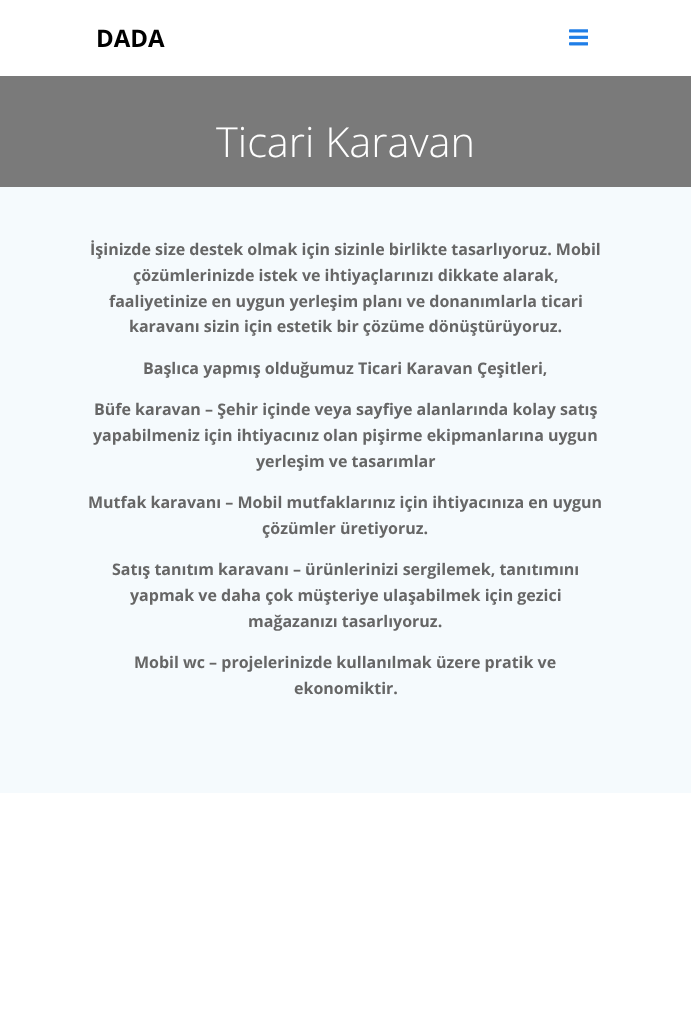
<svg xmlns="http://www.w3.org/2000/svg" width="691" height="1033">
<style>*{font-kerning:none!important;font-variant-ligatures:none!important}</style>
<style>
.a{font:bold 24px Open Sans;fill:#000}
.b{font:300 41.5px Open Sans;fill:#fff}
.c{font:bold 16px Open Sans;fill:#666}
</style>
<rect width="100%" height="100%" fill="#fff"/>
<image href="1.png" x="569" y="29" width="19" height="17"/>
<path fill="#7a7a7a" d="M0 76h691v111H0z"/>
<path fill="#f5fafd" d="M0 187h691v606H0z"/>
<text class="a" x="96" y="47">DADA</text>
<text class="b" x="216" y="157">Ticari Karavan</text>
<text class="c" x="90" y="255">İşinizde size destek olmak için sizinle birlikte tasarlıyoruz. Mobil</text>
<text class="c" x="133" y="281">çözümlerinizde istek ve ihtiyaçlarınızı dikkate alarak,</text>
<text class="c" x="109" y="307">faaliyetinize en uygun yerleşim planı ve donanımlarla ticari</text>
<text class="c" x="129" y="332">karavanı sizin için estetik bir çözüme dönüştürüyoruz.</text>
<text class="c" x="143" y="374">Başlıca yapmış olduğumuz Ticari Karavan Çeşitleri,</text>
<text class="c" x="94" y="415">Büfe karavan – Şehir içinde veya sayfiye alanlarında kolay satış</text>
<text class="c" x="93" y="441">yapabilmeniz için ihtiyacınız olan pişirme ekipmanlarına uygun</text>
<text class="c" x="256" y="467">yerleşim ve tasarımlar</text>
<text class="c" x="88" y="508">Mutfak karavanı – Mobil mutfaklarınız için ihtiyacınıza en uygun</text>
<text class="c" x="262" y="534">çözümler üretiyoruz.</text>
<text class="c" x="112" y="575">Satış tanıtım karavanı – ürünlerinizi sergilemek, tanıtımını</text>
<text class="c" x="130" y="601">yapmak ve daha çok müşteriye ulaşabilmek için gezici</text>
<text class="c" x="248" y="627">mağazanızı tasarlıyoruz.</text>
<text class="c" x="134" y="668">Mobil wc – projelerinizde kullanılmak üzere pratik ve</text>
<text class="c" x="294" y="694">ekonomiktir.</text>
</svg>
